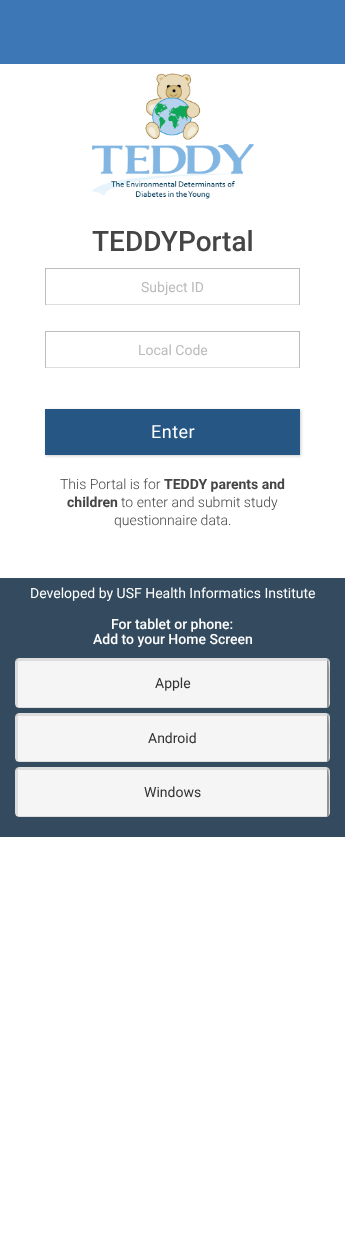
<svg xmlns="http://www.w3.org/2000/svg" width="345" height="1252">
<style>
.a{font:500 28px Roboto;fill:#454545}
.b{font:14px Roboto;fill:#bbb}
.c{font:18px Roboto;letter-spacing:0.5px;fill:#fff}
.d{font:300 14px Roboto;fill:#454545}
.e{font:bold 14px Roboto;fill:#454545}
.f{font:14px Roboto;fill:#fff}
.g{font:500 14px Roboto;fill:#fff}
.h{font:14px Roboto;fill:#333}
</style>
<rect width="100%" height="100%" fill="#fff"/>
<path fill="#3d77b5" d="M0 0h345v64H0z"/>
<image href="1.png" x="92" y="73" width="162" height="126"/>
<path fill="#ddd" d="M46 304h253v1H46z"/>
<path fill="#bdbdbd" d="M45 268h255v1H45z"/>
<path fill="#bdbdbd" d="M299 268h1v37H299z"/>
<path fill="#bdbdbd" d="M45 268h1v37H45z"/>
<path fill="#ddd" d="M46 367h253v1H46z"/>
<path fill="#bdbdbd" d="M45 331h255v1H45z"/>
<path fill="#bdbdbd" d="M299 331h1v37H299z"/>
<path fill="#bdbdbd" d="M45 331h1v37H45z"/>
<path fill="#00000033" filter="blur(1.5px)" d="M46 410h255v46H46z"/>
<path fill="#265684" d="M45 409h255v46H45z"/>
<path fill="#334a5f" d="M0 578h345v259H0z"/>
<rect fill="none" stroke="#ddd" x="15.5" y="658.5" width="314" height="49" rx="3.5"/>
<path fill="#f5f5f5" d="M19 659h307c1.5 0 3 1.5 3 3v45h-313v-45c0-1.5 1.5-3 3-3z"/>
<path fill="#ddd" d="M19 659l-2 1l1 2l1-1h308l1-1l-2-1z"/>
<path fill="#939393" d="M327 707h2c0-6 1-45-1-47l-1 1z"/>
<path fill="#ddd" d="M16 707h2v-45l-1-2l-1 2z"/>
<rect fill="none" stroke="#ddd" x="15.5" y="713.5" width="314" height="48" rx="3.5"/>
<path fill="#f5f5f5" d="M19 714h307c1.5 0 3 1.5 3 3v44h-313v-44c0-1.5 1.5-3 3-3z"/>
<path fill="#ddd" d="M19 714l-2 1l1 1h1h308l1-1l-2-1z"/>
<path fill="#939393" d="M327 761h2c0-5 1-44-1-46l-1 1z"/>
<path fill="#ddd" d="M16 761h2v-44v-1l-1-1l-1 2z"/>
<rect fill="none" stroke="#ddd" x="15.5" y="767.5" width="314" height="49" rx="3.5"/>
<path fill="#f5f5f5" d="M19 768h307c1.5 0 3 1.5 3 3v45h-313v-45c0-1.5 1.5-3 3-3z"/>
<path fill="#ddd" d="M19 768l-2 1l1 1h1h308l1-1l-2-1z"/>
<path fill="#939393" d="M327 816h2c0-6 1-45-1-47l-1 1z"/>
<path fill="#ddd" d="M16 816h2v-45v-1l-1-1l-1 2z"/>
<text class="a" x="92" y="251">TEDDYPortal</text>
<text class="b" x="141" y="292">Subject ID</text>
<text class="b" x="138" y="355">Local Code</text>
<text class="c" x="151" y="438">Enter</text>
<text class="d" x="60" y="489">This Portal is for</text>
<text class="e" x="164" y="489">TEDDY parents and</text>
<text class="e" x="67" y="507">children</text>
<text class="d" x="121" y="507">to enter and submit study</text>
<text class="d" x="114" y="525">questionnaire data.</text>
<text class="f" x="30" y="598">Developed by USF Health Informatics Institute</text>
<text class="g" x="111" y="629">For tablet or phone:</text>
<text class="g" x="93" y="644">Add to your Home Screen</text>
<text class="h" x="155" y="688">Apple</text>
<text class="h" x="148" y="743">Android</text>
<text class="h" x="144" y="797">Windows</text>
</svg>
